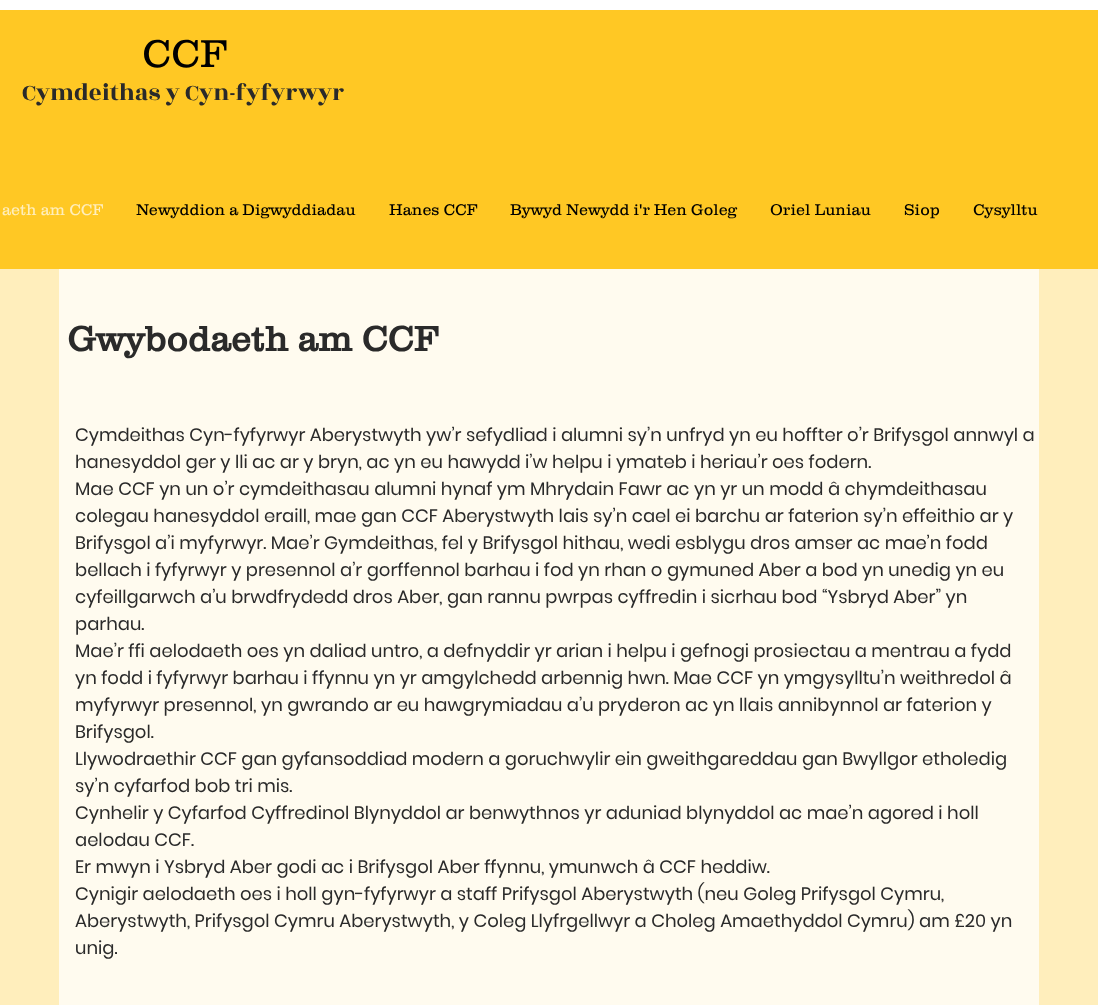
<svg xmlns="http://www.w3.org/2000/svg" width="1098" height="1005">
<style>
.a{font:300 40px 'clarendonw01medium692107';fill:#000}
.b{font:25px Rozha One;fill:#2a2a2a}
.c{font:300 16px 'clarendonw01medium692107';fill:#ffeebc}
.d{font:300 16px 'clarendonw01medium692107';fill:#000}
.e{font:bold 36px 'clarendonw01medium692107';fill:#2a2a2a}
.f{font:18px Poppins;fill:#2a2a2a}
</style>
<rect width="100%" height="100%" fill="#ffeebc"/>
<path fill="#fff" d="M0 0h1098v10H0z"/>
<path fill="#ffc824" d="M0 10h1098v259H0z"/>
<path fill="#fffbef" d="M59 269h980v736H59z"/>
<text class="a" x="142" y="67">CCF</text>
<text class="b" x="22" y="100">Cymdeithas y Cyn-fyfyrwyr</text>
<text class="c" x="2" y="215">aeth am CCF</text>
<text class="d" x="136" y="215">Newyddion a Digwyddiadau</text>
<text class="d" x="389" y="215">Hanes CCF</text>
<text class="d" x="510" y="215">Bywyd Newydd i'r Hen Goleg</text>
<text class="d" x="770" y="215">Oriel Luniau</text>
<text class="d" x="904" y="215">Siop</text>
<text class="d" x="973" y="215">Cysylltu</text>
<text class="e" x="67" y="351">Gwybodaeth am CCF</text>
<text class="f" x="75" y="441">Cymdeithas Cyn-fyfyrwyr Aberystwyth yw’r sefydliad i alumni sy’n unfryd yn eu hoffter o’r Brifysgol annwyl a</text>
<text class="f" x="75" y="468">hanesyddol ger y lli ac ar y bryn, ac yn eu hawydd i’w helpu i ymateb i heriau’r oes fodern.</text>
<text class="f" x="75" y="495">Mae CCF yn un o’r cymdeithasau alumni hynaf ym Mhrydain Fawr ac yn yr un modd â chymdeithasau</text>
<text class="f" x="75" y="522">colegau hanesyddol eraill, mae gan CCF Aberystwyth lais sy’n cael ei barchu ar faterion sy’n effeithio ar y</text>
<text class="f" x="75" y="549">Brifysgol a’i myfyrwyr. Mae’r Gymdeithas, fel y Brifysgol hithau, wedi esblygu dros amser ac mae’n fodd</text>
<text class="f" x="75" y="576">bellach i fyfyrwyr y presennol a’r gorffennol barhau i fod yn rhan o gymuned Aber a bod yn unedig yn eu</text>
<text class="f" x="75" y="603">cyfeillgarwch a’u brwdfrydedd dros Aber, gan rannu pwrpas cyffredin i sicrhau bod “Ysbryd Aber” yn</text>
<text class="f" x="75" y="630">parhau.</text>
<text class="f" x="75" y="657">Mae’r ffi aelodaeth oes yn daliad untro, a defnyddir yr arian i helpu i gefnogi prosiectau a mentrau a fydd</text>
<text class="f" x="75" y="684">yn fodd i fyfyrwyr barhau i ffynnu yn yr amgylchedd arbennig hwn. Mae CCF yn ymgysylltu’n weithredol â</text>
<text class="f" x="75" y="711">myfyrwyr presennol, yn gwrando ar eu hawgrymiadau a’u pryderon ac yn llais annibynnol ar faterion y</text>
<text class="f" x="75" y="738">Brifysgol.</text>
<text class="f" x="75" y="765">Llywodraethir CCF gan gyfansoddiad modern a goruchwylir ein gweithgareddau gan Bwyllgor etholedig</text>
<text class="f" x="75" y="792">sy’n cyfarfod bob tri mis.</text>
<text class="f" x="75" y="819">Cynhelir y Cyfarfod Cyffredinol Blynyddol ar benwythnos yr aduniad blynyddol ac mae’n agored i holl</text>
<text class="f" x="75" y="846">aelodau CCF.</text>
<text class="f" x="75" y="873">Er mwyn i Ysbryd Aber godi ac i Brifysgol Aber ffynnu, ymunwch â CCF heddiw.</text>
<text class="f" x="75" y="900">Cynigir aelodaeth oes i holl gyn-fyfyrwyr a staff Prifysgol Aberystwyth (neu Goleg Prifysgol Cymru,</text>
<text class="f" x="75" y="927">Aberystwyth, Prifysgol Cymru Aberystwyth, y Coleg Llyfrgellwyr a Choleg Amaethyddol Cymru) am £20 yn</text>
<text class="f" x="75" y="954">unig.</text>
</svg>
